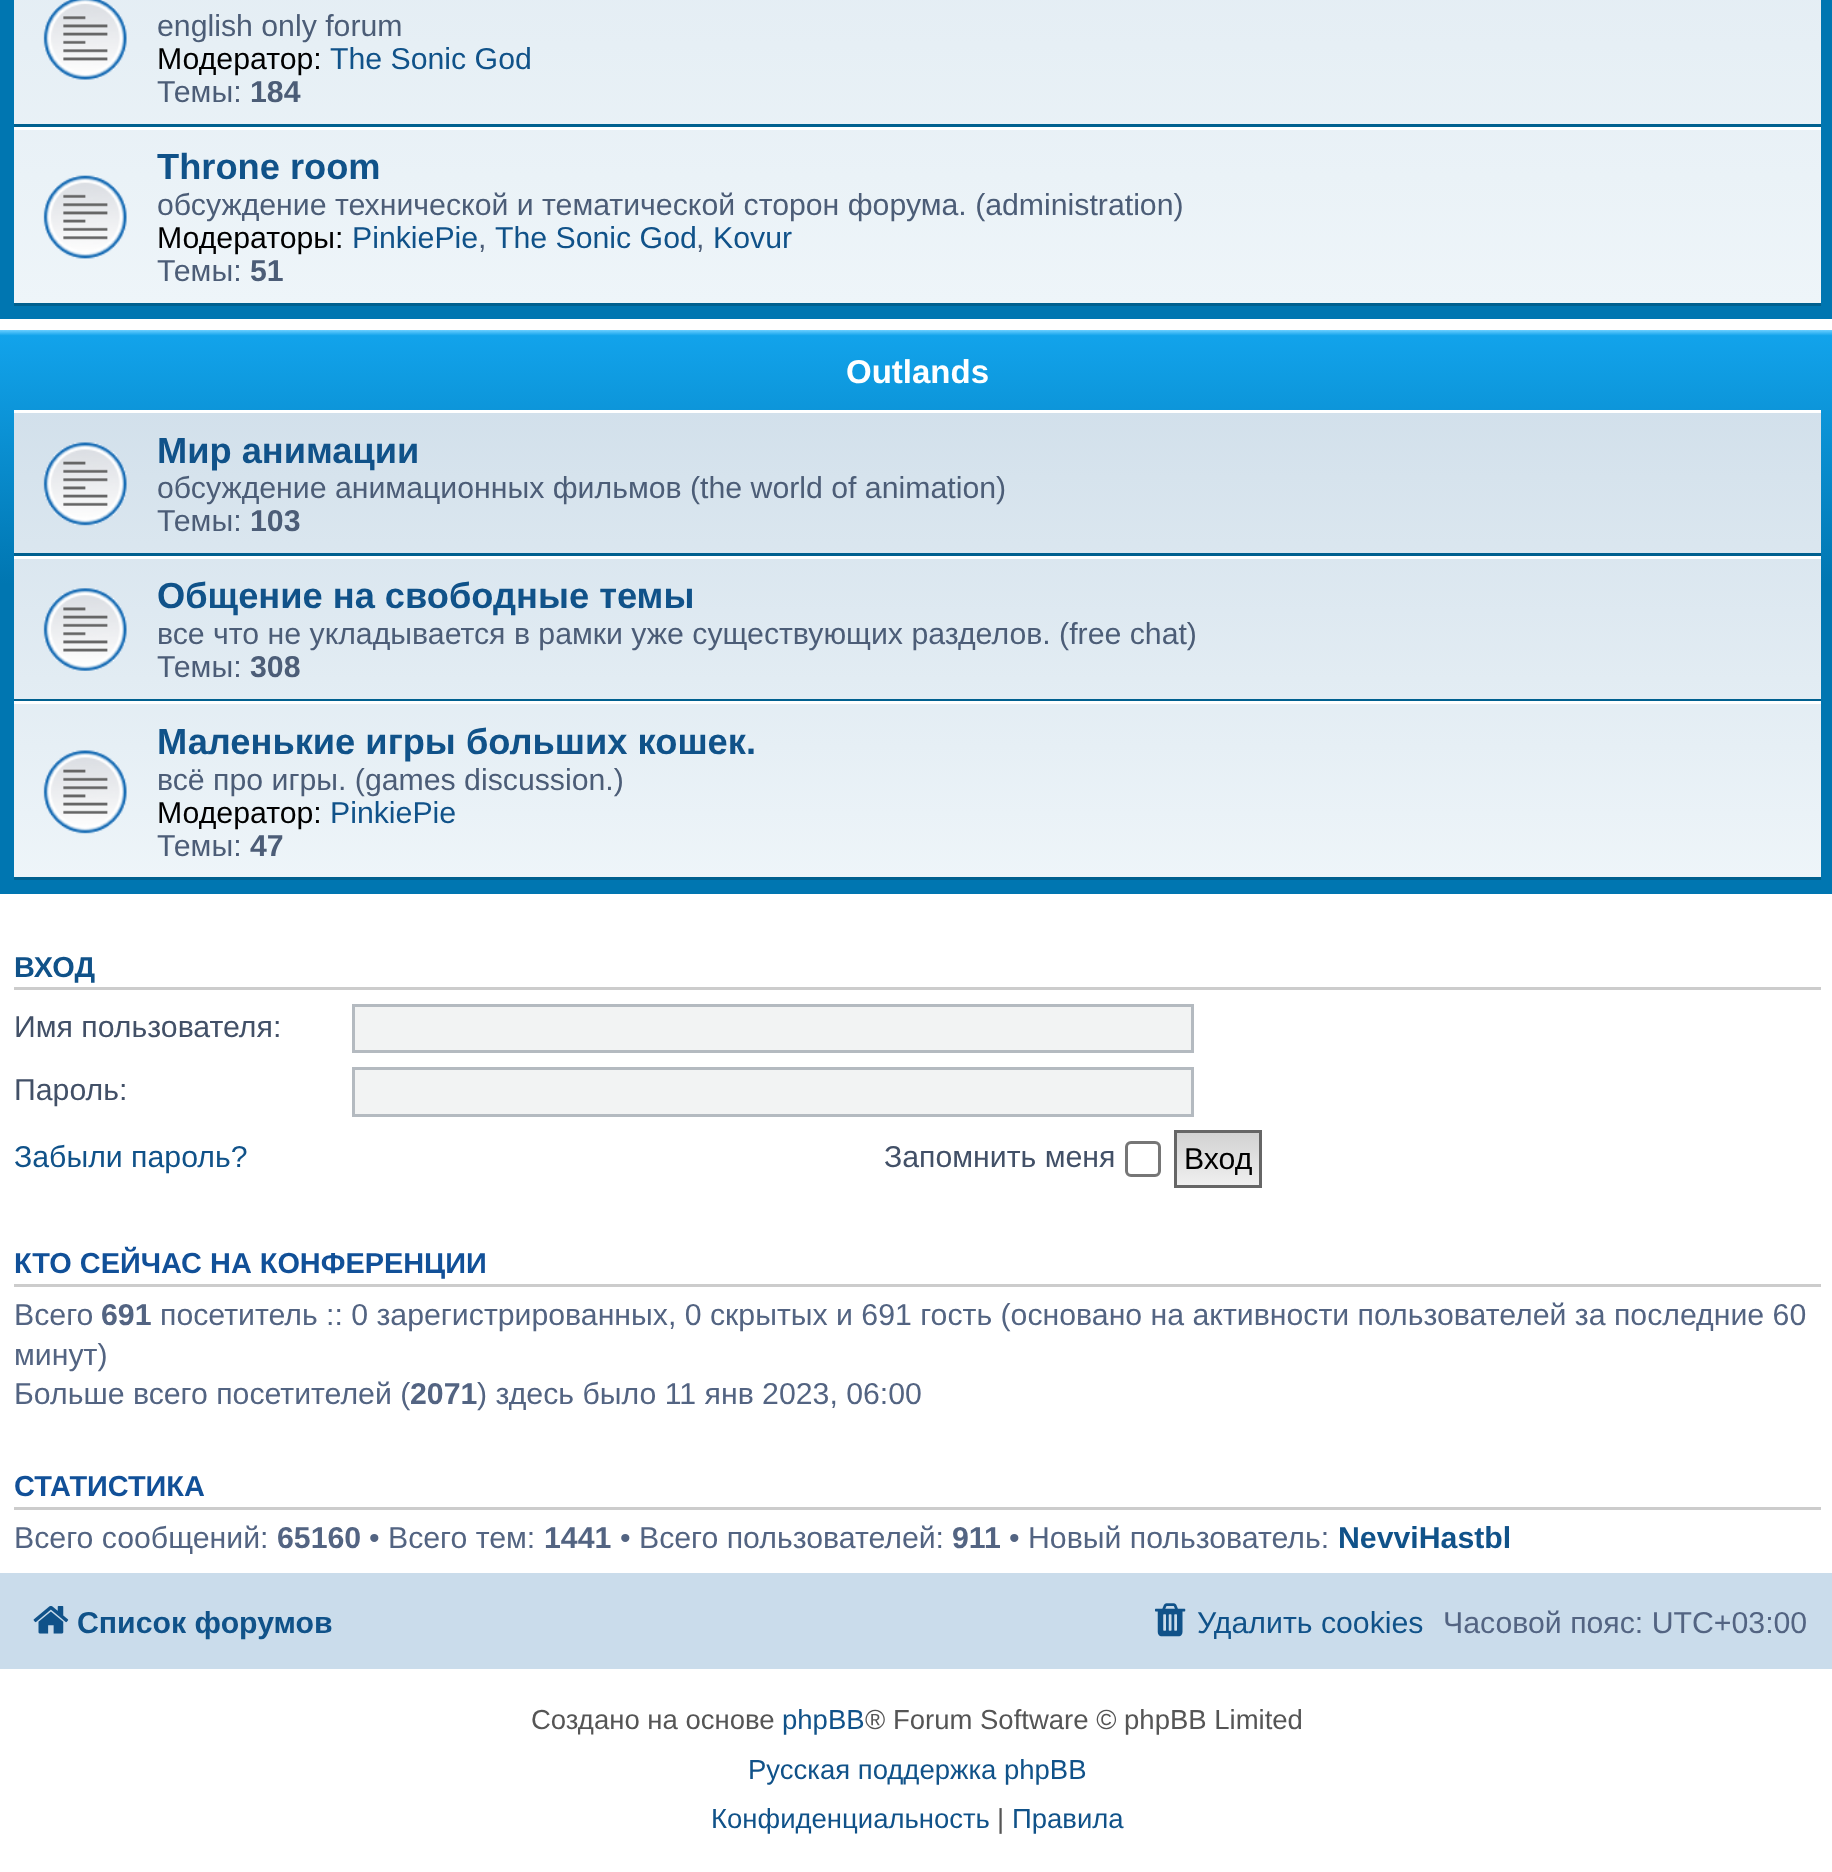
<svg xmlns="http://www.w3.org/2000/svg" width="1832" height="1872">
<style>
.a{font:30.25px Liberation Sans;fill:#4c5d77}
.b{font:30.25px Liberation Sans;fill:#000}
.c{font:30.25px Liberation Sans;fill:#105289}
.d{font:bold 30.25px Liberation Sans;fill:#4c5d77}
.e{font:bold 36.25px Liberation Sans;fill:#105289}
.f{font:bold 33px Liberation Sans;fill:#fff}
.g{font:bold 28.9px Liberation Sans;fill:#105289}
.h{font:30.25px Liberation Sans;fill:#425067}
.i{font:bold 28.9px Liberation Sans;fill:#115098}
.j{font:30.25px Liberation Sans;fill:#536482}
.k{font:bold 30.25px Liberation Sans;fill:#536482}
.l{font:bold 30.25px Liberation Sans;fill:#105289}
.m{font:27.5px Liberation Sans;fill:#555}
.n{font:27.5px Liberation Sans;fill:#105289}
</style>
<defs>
<linearGradient id="g1" gradientUnits="userSpaceOnUse" x1="917" y1="-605" x2="917" y2="305"><stop offset="0" stop-color="#d2e0eb"/><stop offset="1" stop-color="#eef5f9"/></linearGradient>
<linearGradient id="g2" gradientUnits="userSpaceOnUse" x1="917" y1="330" x2="917" y2="894"><stop offset="0" stop-color="#6aceff"/><stop offset="0.01" stop-color="#12a3eb"/><stop offset="0.45" stop-color="#0076b1"/><stop offset="1" stop-color="#0076b1"/></linearGradient>
<linearGradient id="g3" gradientUnits="userSpaceOnUse" x1="917" y1="410" x2="917" y2="880"><stop offset="0" stop-color="#d2e0eb"/><stop offset="1" stop-color="#eef5f9"/></linearGradient>
<linearGradient id="g4" gradientUnits="userSpaceOnUse" x1="1218" y1="1133" x2="1218" y2="1185"><stop offset="0" stop-color="#d2d2d2"/><stop offset="1" stop-color="#efefef"/></linearGradient>
</defs>
<rect width="100%" height="100%" fill="#fff"/>
<path fill="#0076b1" d="M0 0h1832v319H0z"/>
<path fill="url(#g1)" d="M14 0h1807v303H14z"/>
<path fill="#00608f" d="M14 124h1807v3H14z"/>
<image href="1.png" x="43" y="0" width="84" height="80"/>
<path fill="#fff" d="M14 127h1807v3H14z"/>
<path fill="#00608f" d="M14 303h1807v3H14z"/>
<image href="2.png" x="43" y="175" width="84" height="84"/>
<path fill="url(#g2)" d="M0 330h1832v564H0z"/>
<path fill="url(#g3)" d="M14 413h1807v464H14z"/>
<path fill="#fff" d="M14 410h1807v3H14z"/>
<path fill="#00608f" d="M14 553h1807v3H14z"/>
<image href="3.png" x="43" y="442" width="84" height="84"/>
<path fill="#fff" d="M14 556h1807v3H14z"/>
<path fill="#00608f" d="M14 699h1807v2H14z"/>
<image href="4.png" x="43" y="588" width="84" height="83"/>
<path fill="#fff" d="M14 701h1807v3H14z"/>
<path fill="#00608f" d="M14 877h1807v3H14z"/>
<image href="5.png" x="43" y="750" width="84" height="84"/>
<path fill="#ccc" d="M14 987h1807v3H14z"/>
<path fill="#f2f3f3" stroke="#b4bac0" stroke-width="3" d="M353.5 1005.5h839v46H353.5z"/>
<path fill="#f2f3f3" stroke="#b4bac0" stroke-width="3" d="M353.5 1068.5h839v47H353.5z"/>
<rect fill="none" stroke="#767676" stroke-width="3" x="1126.5" y="1142.5" width="33" height="33" rx="4.5"/>
<path fill="url(#g4)" d="M1177 1133h82v52H1177z"/>
<path fill="none" stroke="#666" stroke-width="3" d="M1175.5 1131.5h85v55H1175.5z"/>
<path fill="#ccc" d="M14 1284h1807v3H14z"/>
<path fill="#ccc" d="M14 1507h1807v3H14z"/>
<path fill="#cadceb" d="M0 1573h1832v96H0z"/>
<image href="6.png" x="33" y="1606" width="36" height="28"/>
<image href="7.png" x="1155" y="1603" width="31" height="34"/>
<text class="a" x="157" y="36">english only forum</text>
<text class="b" x="157" y="69">Модератор:</text>
<text class="c" x="330" y="69">The Sonic God</text>
<text class="a" x="157" y="102">Темы:</text>
<text class="d" x="250" y="102">184</text>
<text class="e" x="157" y="179">Throne room</text>
<text class="a" x="157" y="215">обсуждение технической и тематической сторон форума. (administration)</text>
<text class="b" x="157" y="248">Модераторы:</text>
<text class="c" x="352" y="248">PinkiePie</text>
<text class="a" x="478" y="248">,</text>
<text class="c" x="495" y="248">The Sonic God</text>
<text class="a" x="696" y="248">,</text>
<text class="c" x="713" y="248">Kovur</text>
<text class="a" x="157" y="281">Темы:</text>
<text class="d" x="250" y="281">51</text>
<text class="f" x="846" y="383">Outlands</text>
<text class="e" x="157" y="463">Мир анимации</text>
<text class="a" x="157" y="498">обсуждение анимационных фильмов (the world of animation)</text>
<text class="a" x="157" y="531">Темы:</text>
<text class="d" x="250" y="531">103</text>
<text class="e" x="157" y="608">Общение на свободные темы</text>
<text class="a" x="157" y="644">все что не укладывается в рамки уже существующих разделов. (free chat)</text>
<text class="a" x="157" y="677">Темы:</text>
<text class="d" x="250" y="677">308</text>
<text class="e" x="157" y="754">Маленькие игры больших кошек.</text>
<text class="a" x="157" y="790">всё про игры. (games discussion.)</text>
<text class="b" x="157" y="823">Модератор:</text>
<text class="c" x="330" y="823">PinkiePie</text>
<text class="a" x="157" y="856">Темы:</text>
<text class="d" x="250" y="856">47</text>
<text class="g" x="14" y="977">ВХОД</text>
<text class="h" x="14" y="1037">Имя пользователя:</text>
<text class="h" x="14" y="1100">Пароль:</text>
<text class="c" x="14" y="1167">Забыли пароль?</text>
<text class="h" x="884" y="1167">Запомнить меня</text>
<text class="b" x="1184" y="1169">Вход</text>
<text class="i" x="14" y="1273">КТО СЕЙЧАС НА КОНФЕРЕНЦИИ</text>
<text class="j" x="14" y="1325">Всего</text>
<text class="k" x="101" y="1325">691</text>
<text class="j" x="160" y="1325">посетитель :: 0 зарегистрированных, 0 скрытых и 691 гость (основано на активности пользователей за последние 60</text>
<text class="j" x="14" y="1365">минут)</text>
<text class="j" x="14" y="1404">Больше всего посетителей (</text>
<text class="k" x="410" y="1404">2071</text>
<text class="j" x="477" y="1404">) здесь было 11 янв 2023, 06:00</text>
<text class="i" x="14" y="1496">СТАТИСТИКА</text>
<text class="j" x="14" y="1548">Всего сообщений:</text>
<text class="k" x="277" y="1548">65160</text>
<text class="j" x="369" y="1548">• Всего тем:</text>
<text class="k" x="544" y="1548">1441</text>
<text class="j" x="620" y="1548">• Всего пользователей:</text>
<text class="k" x="952" y="1548">911</text>
<text class="j" x="1009" y="1548">• Новый пользователь:</text>
<text class="l" x="1338" y="1548">NevviHastbl</text>
<text class="l" x="77" y="1633">Список форумов</text>
<text class="c" x="1197" y="1633">Удалить cookies</text>
<text class="j" x="1443" y="1633">Часовой пояс: UTC+03:00</text>
<text class="m" x="531" y="1729">Создано на основе</text>
<text class="n" x="782" y="1729">phpBB</text>
<text class="m" x="865" y="1729">® Forum Software © phpBB Limited</text>
<text class="n" x="748" y="1779">Русская поддержка phpBB</text>
<text class="n" x="711" y="1828">Конфиденциальность</text>
<text class="m" x="997" y="1828">|</text>
<text class="n" x="1012" y="1828">Правила</text>
</svg>
